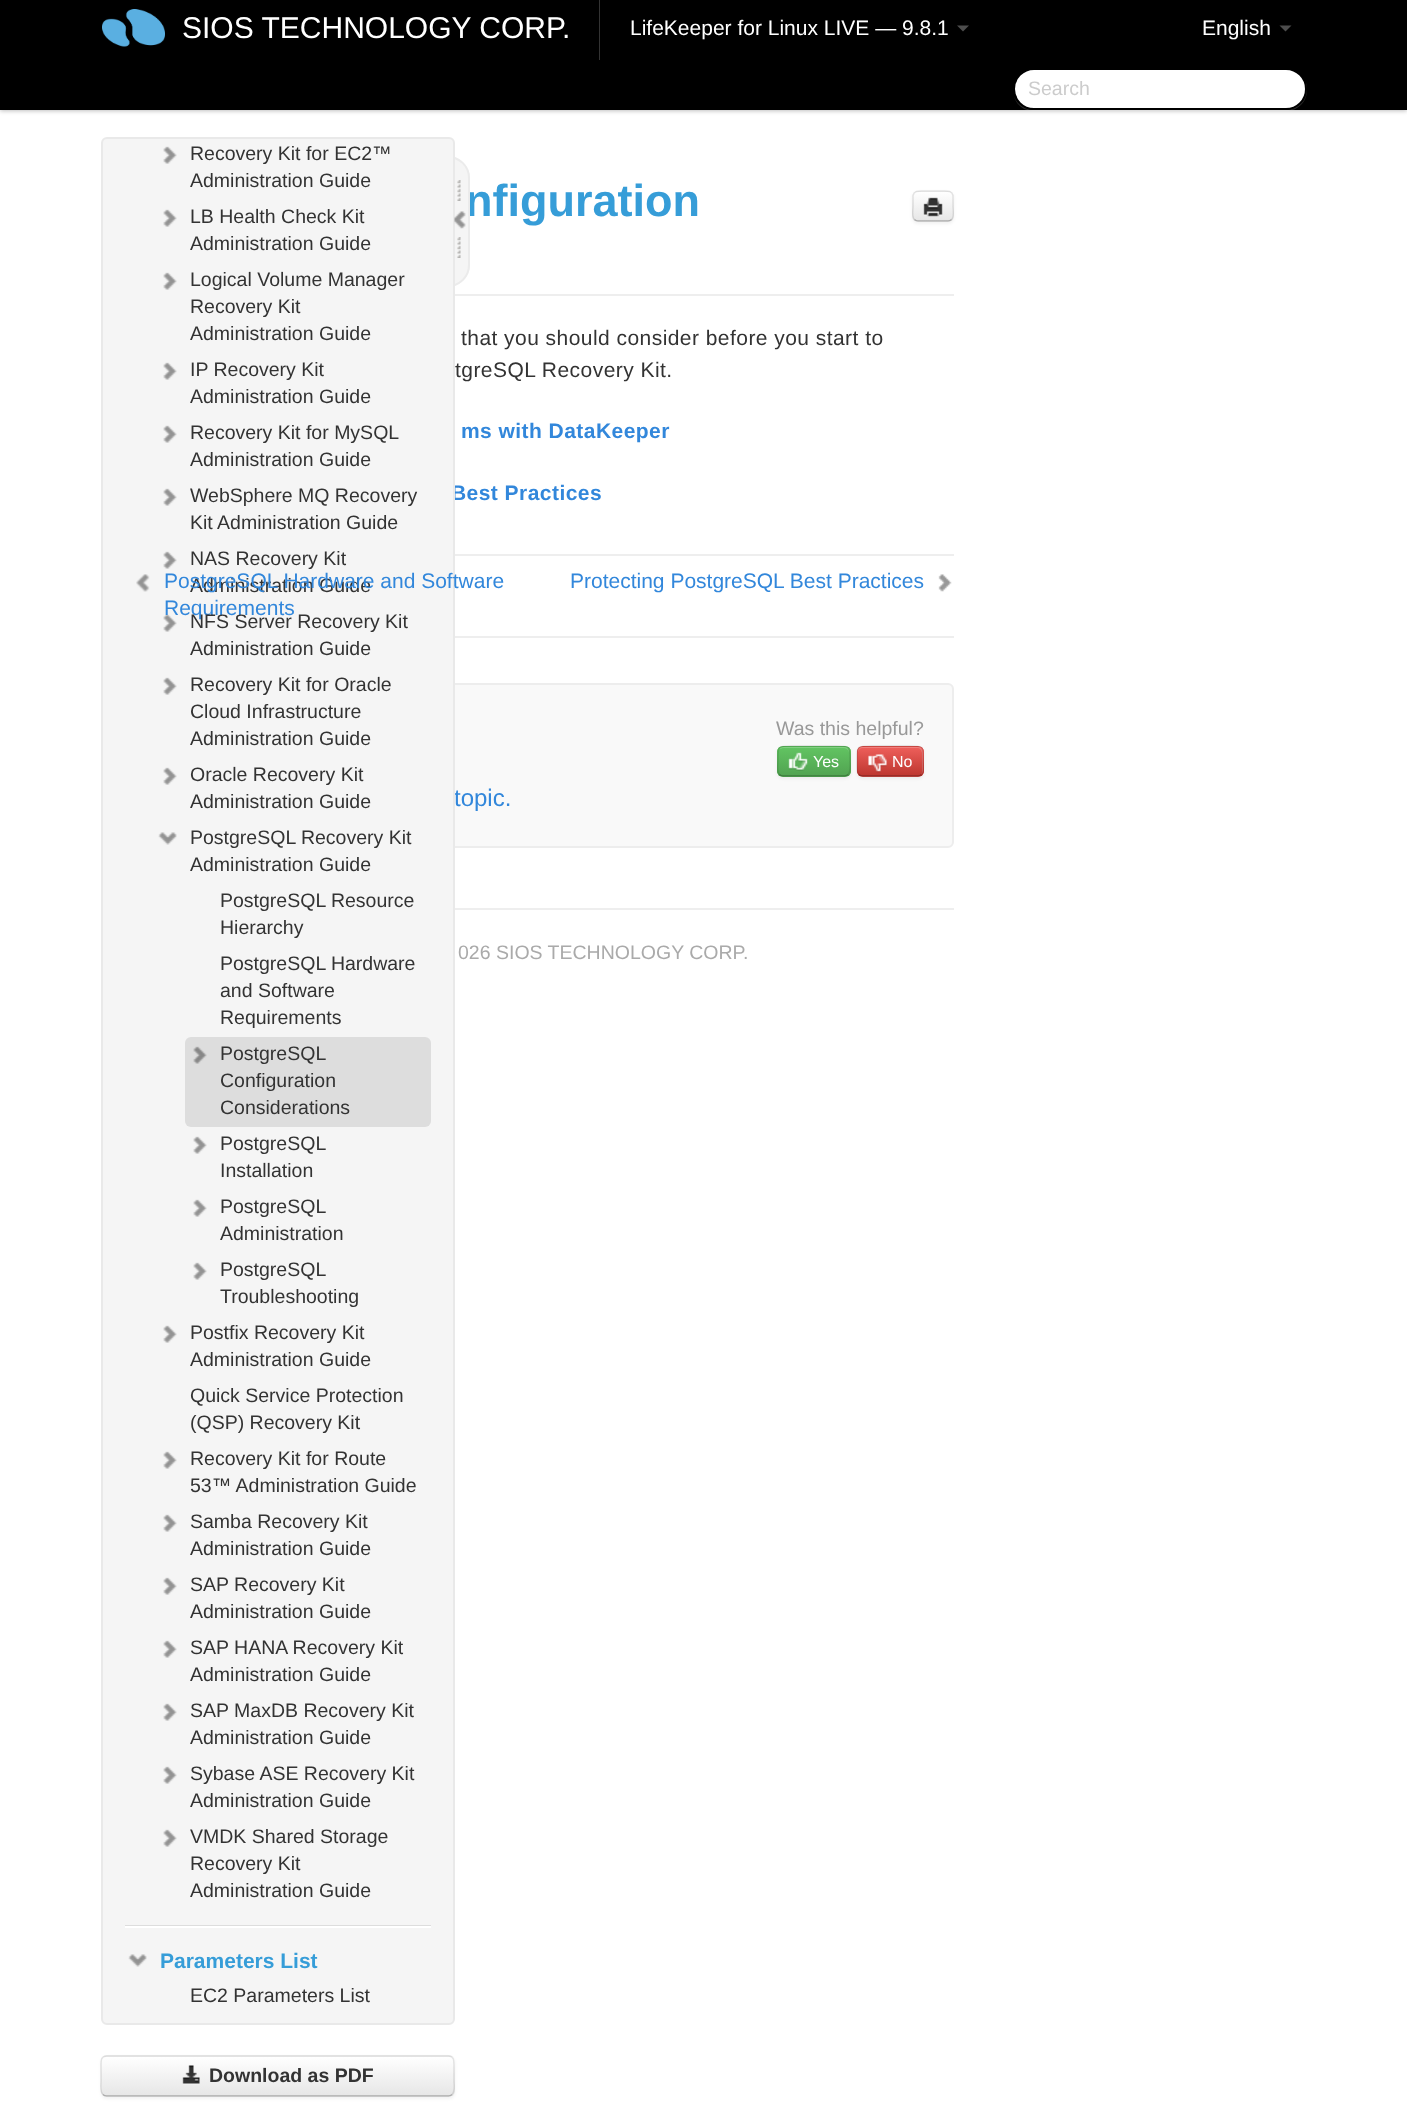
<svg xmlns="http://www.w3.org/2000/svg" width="1407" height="2126">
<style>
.a{font:30px Liberation Sans;fill:#fff}
.b{font:21px Liberation Sans;fill:#fff}
.c{font:19.5px Liberation Sans;fill:#ccc}
.d{font:bold 19.5px Liberation Sans;fill:#333}
.e{font:bold 45px Liberation Sans;fill:#369dd8}
.f{font:21px Liberation Sans;letter-spacing:0.45px;fill:#333}
.g{font:bold 21px Liberation Sans;letter-spacing:0.45px;fill:#3287db}
.h{font:21px Liberation Sans;fill:#3287db}
.i{font:19.5px Liberation Sans;fill:#999}
.j{font:16px Liberation Sans;fill:#fff}
.k{font:24px Liberation Sans;fill:#3287db}
.l{font:19.5px Liberation Sans;fill:#333}
.m{font:bold 21px Liberation Sans;fill:#369dd8}
.n{font:19.5px Liberation Sans;fill:#aaa}
</style>
<defs>
<clipPath id="clip1"><rect x="101" y="2055" width="354" height="42" rx="6"/></clipPath>
<linearGradient id="g1" gradientUnits="userSpaceOnUse" x1="278" y1="2057" x2="278" y2="2096"><stop offset="0" stop-color="#fff"/><stop offset="1" stop-color="#e6e6e6"/></linearGradient>
<clipPath id="clip2"><rect x="912" y="191" width="42" height="31" rx="6"/></clipPath>
<linearGradient id="g2" gradientUnits="userSpaceOnUse" x1="933" y1="192" x2="933" y2="221"><stop offset="0" stop-color="#fff"/><stop offset="1" stop-color="#e6e6e6"/></linearGradient>
<clipPath id="clip3"><rect x="777" y="746" width="74" height="31" rx="6"/></clipPath>
<linearGradient id="g3" gradientUnits="userSpaceOnUse" x1="814" y1="747" x2="814" y2="776"><stop offset="0" stop-color="#62c462"/><stop offset="1" stop-color="#51a351"/></linearGradient>
<clipPath id="clip4"><rect x="857" y="746" width="67" height="31" rx="6"/></clipPath>
<linearGradient id="g4" gradientUnits="userSpaceOnUse" x1="890" y1="747" x2="890" y2="776"><stop offset="0" stop-color="#ee5f5b"/><stop offset="1" stop-color="#bd362f"/></linearGradient>
<clipPath id="clip5"><path d="M455 141h30v165H455z"/></clipPath>
</defs>
<rect width="100%" height="100%" fill="#fff"/>
<path fill="#00000040" filter="blur(2px)" d="M0 2h1407v109H0z"/>
<path fill="#000" d="M0 0h1407v110H0z"/>
<image href="1.png" x="102" y="9" width="63" height="38"/>
<path fill="#333" d="M599 0h1v60H599z"/>
<path fill="#4d4d4d" d="M957 25.5h12l-6 6z"/>
<path fill="#ffffff26" d="M1014 96c2 9 10 15 20 15h252c12 0 21-9 21-21c0-3 0-5-1-7v5c0 12-9 22-20 22h-252c-9 0-17-6-20-14z"/>
<rect fill="#fff" stroke="#000" stroke-width="2" x="1014" y="69" width="292" height="40" rx="20"/>
<path fill="#4d4d4d" d="M1279.5 25.5h12l-6 6z"/>
<rect fill="#0000000d" filter="blur(1.5px)" x="101" y="2057" width="354" height="42" rx="6"/>
<rect fill="#f5f5f5" x="101" y="2055" width="354" height="42" rx="6"/>
<g clip-path="url(#clip1)">
<path fill="url(#g1)" d="M101 2057h354v39H101z"/>
</g>
<path fill="none" stroke="#00000040" stroke-width="1.5" d="M452 2094.5c-1 1-2 1.5-3.5 1.5h-342c-1.5 0-2.5-.5-3.5-1.5"/>
<path fill="none" stroke="#0000001a" stroke-width="1.5" d="M103 2094.5c-3.5-3-2-10-2-13.5v-15c0-4-.5-10 5.5-10h342c6 0 5.5 6 5.5 10v15c0 3.5 1.5 10.5-2 13.5"/>
<image href="7.png" x="182" y="2065" width="18" height="20"/>
<path fill="#eee" d="M455 294h499v2H455z"/>
<rect fill="#0000000d" filter="blur(1.5px)" x="912" y="192" width="42" height="32" rx="6"/>
<rect fill="#f5f5f5" x="912" y="191" width="42" height="31" rx="6"/>
<g clip-path="url(#clip2)">
<path fill="url(#g2)" d="M912 192h42v29H912z"/>
</g>
<path fill="#ffffff33" d="M918 194h25c6-.5 9-1 9 7c0 10.5 1 16-.5 18.5c1-1 1.5-2 1.5-3.5v-19c0-3-2-5-5-5h-29c-3 0-5 2-5 5v4c0-3 0-7 4-7z"/>
<path fill="none" stroke="#00000040" stroke-width="1.5" d="M951.5 219.5c-1 1-2 1.5-3.5 1.5h-30c-1.5 0-2.5-.5-3.5-1.5"/>
<path fill="none" stroke="#0000001a" stroke-width="1.5" d="M914.5 219.5c-3-2.5-1.5-9.5-1.5-13.5v-10.5c1-5 6-4.5 10-4.5h20c4 0 9-.5 10 4.5v10.5c0 4 1.5 11-1.5 13.5"/>
<image href="8.png" x="923" y="197" width="20" height="20"/>
<path fill="#eee" d="M455 554h499v2H455z"/>
<path fill="#eee" d="M455 636h499v2H455z"/>
<image href="10.png" x="938" y="574" width="14" height="18"/>
<rect fill="#f9f9f9" stroke="#ededed" stroke-width="2" x="135" y="684" width="818" height="163" rx="5"/>
<rect fill="#0000000d" filter="blur(1.5px)" x="777" y="747" width="74" height="32" rx="6"/>
<rect fill="#5bb75b" x="777" y="746" width="74" height="31" rx="6"/>
<g clip-path="url(#clip3)">
<path fill="url(#g3)" d="M777 747h74v29H777z"/>
</g>
<path fill="#ffffff33" d="M783 748h61c3 0 5 3 5 5v-1c0-3-2-5-5-5h-60c-2 0-4 1-5 3c1-1 3-2 4-2z"/>
<path fill="none" stroke="#00000040" stroke-width="1.5" d="M848 774.5c-1 1-2 1.5-3.5 1.5h-61.5c-1.5 0-2.5-.5-3.5-1.5"/>
<path fill="none" stroke="#0000001a" stroke-width="1.5" d="M779.5 774.5c-3-2.5-1.5-9.5-1.5-13.5c0-15.5-1-15 15-15h41c16.5 0 16-.5 16 15c0 4 1 11-2 13.5"/>
<image href="11.png" x="788" y="752" width="20" height="19"/>
<rect fill="#0000000d" filter="blur(1.5px)" x="857" y="747" width="67" height="32" rx="6"/>
<rect fill="#da4f49" x="857" y="746" width="67" height="31" rx="6"/>
<g clip-path="url(#clip4)">
<path fill="url(#g4)" d="M857 747h67v29H857z"/>
</g>
<path fill="#ffffff33" d="M862 748h56c2 0 4 3 4 5v19l-1 3c1-1 2-3 2-4v-19c0-3-2-5-5-5h-55c-3 0-5 2-5 5v1c0-2 2-5 4-5z"/>
<path fill="none" stroke="#00000040" stroke-width="1.5" d="M921.5 774.5c-1 1-2 1.5-3.5 1.5h-55.5c-1.5 0-2.5-.5-3.5-1.5"/>
<path fill="none" stroke="#0000001a" stroke-width="1.5" d="M859 774.5c-3-2.5-2-9.5-2-13.5c0-15-1-15 15-15h37c15.5 0 14 0 14 15c0 4 1.5 11-1.5 13.5"/>
<image href="12.png" x="868" y="754" width="19" height="19"/>
<path fill="#eee" d="M455 908h499v2H455z"/>
<text class="a" x="182" y="38">SIOS TECHNOLOGY CORP.</text>
<text class="b" x="630" y="35">LifeKeeper for Linux LIVE — 9.8.1</text>
<text class="c" x="1028" y="95">Search</text>
<text class="b" x="1202" y="35">English</text>
<text class="d" x="209" y="2082">Download as PDF</text>
<text class="e" x="465" y="216">nfiguration</text>
<path fill="#f5f5f5" d="M455 156h-7c12 0 22 10 22 22v87c0 12-10 22-22 22h7z"/>
<text class="f" x="461" y="345">that you should consider before you start to</text>
<text class="f" x="455" y="377">tgreSQL Recovery Kit.</text>
<text class="g" x="461" y="438">ms with DataKeeper</text>
<text class="g" x="451" y="500">Best Practices</text>
<text class="h" x="570" y="588">Protecting PostgreSQL Best Practices</text>
<text class="i" x="776" y="735">Was this helpful?</text>
<text class="j" x="813" y="767">Yes</text>
<text class="j" x="892" y="767">No</text>
<text class="k" x="454" y="806">topic.</text>
<rect fill="#f5f5f5" stroke="#e9e9e9" stroke-width="2" x="102" y="138" width="352" height="1886" rx="5"/>
<image href="9.png" x="136" y="574" width="14" height="18"/>
<image href="2.png" x="163" y="614" width="14" height="18"/>
<text class="h" x="164" y="615">Requirements</text>
<text class="l" x="190" y="592">Administration Guide</text>
<text class="h" x="164" y="588">PostgreSQL Hardware and Software</text>
<text class="l" x="190" y="2002">EC2 Parameters List</text>
<image href="3.png" x="128" y="1954" width="19" height="13"/>
<text class="m" x="160" y="1968">Parameters List</text>
<image href="2.png" x="163" y="1829" width="14" height="18"/>
<text class="l" x="190" y="1897">Administration Guide</text>
<text class="l" x="190" y="1870">Recovery Kit</text>
<text class="l" x="190" y="1843">VMDK Shared Storage</text>
<image href="2.png" x="163" y="1766" width="14" height="18"/>
<text class="l" x="190" y="1807">Administration Guide</text>
<text class="l" x="190" y="1780">Sybase ASE Recovery Kit</text>
<image href="2.png" x="163" y="1703" width="14" height="18"/>
<text class="l" x="190" y="1744">Administration Guide</text>
<text class="l" x="190" y="1717">SAP MaxDB Recovery Kit</text>
<image href="2.png" x="163" y="1640" width="14" height="18"/>
<text class="l" x="190" y="1681">Administration Guide</text>
<text class="l" x="190" y="1654">SAP HANA Recovery Kit</text>
<image href="2.png" x="163" y="1577" width="14" height="18"/>
<text class="l" x="190" y="1618">Administration Guide</text>
<text class="l" x="190" y="1591">SAP Recovery Kit</text>
<image href="2.png" x="163" y="1514" width="14" height="18"/>
<text class="l" x="190" y="1555">Administration Guide</text>
<text class="l" x="190" y="1528">Samba Recovery Kit</text>
<image href="2.png" x="163" y="1451" width="14" height="18"/>
<text class="l" x="190" y="1492">53™ Administration Guide</text>
<text class="l" x="190" y="1465">Recovery Kit for Route</text>
<text class="l" x="190" y="1429">(QSP) Recovery Kit</text>
<text class="l" x="190" y="1402">Quick Service Protection</text>
<image href="2.png" x="163" y="1325" width="14" height="18"/>
<text class="l" x="190" y="1366">Administration Guide</text>
<text class="l" x="190" y="1339">Postfix Recovery Kit</text>
<image href="2.png" x="193" y="1262" width="14" height="18"/>
<text class="l" x="220" y="1303">Troubleshooting</text>
<text class="l" x="220" y="1276">PostgreSQL</text>
<image href="2.png" x="193" y="1199" width="14" height="18"/>
<text class="l" x="220" y="1240">Administration</text>
<text class="l" x="220" y="1213">PostgreSQL</text>
<image href="2.png" x="193" y="1136" width="14" height="18"/>
<text class="l" x="220" y="1177">Installation</text>
<text class="l" x="220" y="1150">PostgreSQL</text>
<rect fill="#ddd" x="185" y="1037" width="246" height="90" rx="6"/>
<image href="4.png" x="193" y="1046" width="14" height="18"/>
<text class="l" x="220" y="1114">Considerations</text>
<text class="l" x="220" y="1087">Configuration</text>
<text class="l" x="220" y="1060">PostgreSQL</text>
<text class="l" x="220" y="1024">Requirements</text>
<text class="l" x="220" y="997">and Software</text>
<text class="l" x="220" y="970">PostgreSQL Hardware</text>
<text class="l" x="220" y="934">Hierarchy</text>
<text class="l" x="220" y="907">PostgreSQL Resource</text>
<image href="3.png" x="158" y="832" width="19" height="13"/>
<text class="l" x="190" y="871">Administration Guide</text>
<text class="l" x="190" y="844">PostgreSQL Recovery Kit</text>
<image href="2.png" x="163" y="767" width="14" height="18"/>
<text class="l" x="190" y="808">Administration Guide</text>
<text class="l" x="190" y="781">Oracle Recovery Kit</text>
<image href="2.png" x="163" y="677" width="14" height="18"/>
<text class="l" x="190" y="745">Administration Guide</text>
<text class="l" x="190" y="718">Cloud Infrastructure</text>
<text class="l" x="190" y="691">Recovery Kit for Oracle</text>
<text class="l" x="190" y="655">Administration Guide</text>
<text class="l" x="190" y="628">NFS Server Recovery Kit</text>
<image href="2.png" x="163" y="551" width="14" height="18"/>
<text class="l" x="190" y="565">NAS Recovery Kit</text>
<image href="2.png" x="163" y="488" width="14" height="18"/>
<text class="l" x="190" y="529">Kit Administration Guide</text>
<text class="l" x="190" y="502">WebSphere MQ Recovery</text>
<image href="2.png" x="163" y="425" width="14" height="18"/>
<text class="l" x="190" y="466">Administration Guide</text>
<text class="l" x="190" y="439">Recovery Kit for MySQL</text>
<image href="2.png" x="163" y="362" width="14" height="18"/>
<text class="l" x="190" y="403">Administration Guide</text>
<text class="l" x="190" y="376">IP Recovery Kit</text>
<image href="2.png" x="163" y="272" width="14" height="18"/>
<text class="l" x="190" y="340">Administration Guide</text>
<text class="l" x="190" y="313">Recovery Kit</text>
<text class="l" x="190" y="286">Logical Volume Manager</text>
<image href="2.png" x="163" y="209" width="14" height="18"/>
<text class="l" x="190" y="250">Administration Guide</text>
<text class="l" x="190" y="223">LB Health Check Kit</text>
<image href="2.png" x="163" y="146" width="14" height="18"/>
<text class="l" x="190" y="187">Administration Guide</text>
<text class="l" x="190" y="160">Recovery Kit for EC2™</text>
<g clip-path="url(#clip5)">
<rect fill="none" stroke="#ebebeb" stroke-width="2" x="427" y="157" width="42" height="129" rx="21"/>
</g>
<image href="5.png" x="457" y="237" width="4" height="21"/>
<image href="6.png" x="454" y="211" width="12" height="18"/>
<image href="5.png" x="457" y="180" width="4" height="21"/>
<path fill="#fff" d="M125 1926h306v2H125z"/>
<path fill="#ddd" d="M125 1925h306v1H125z"/>
<text class="n" x="458" y="959">026 SIOS TECHNOLOGY CORP.</text>
</svg>
